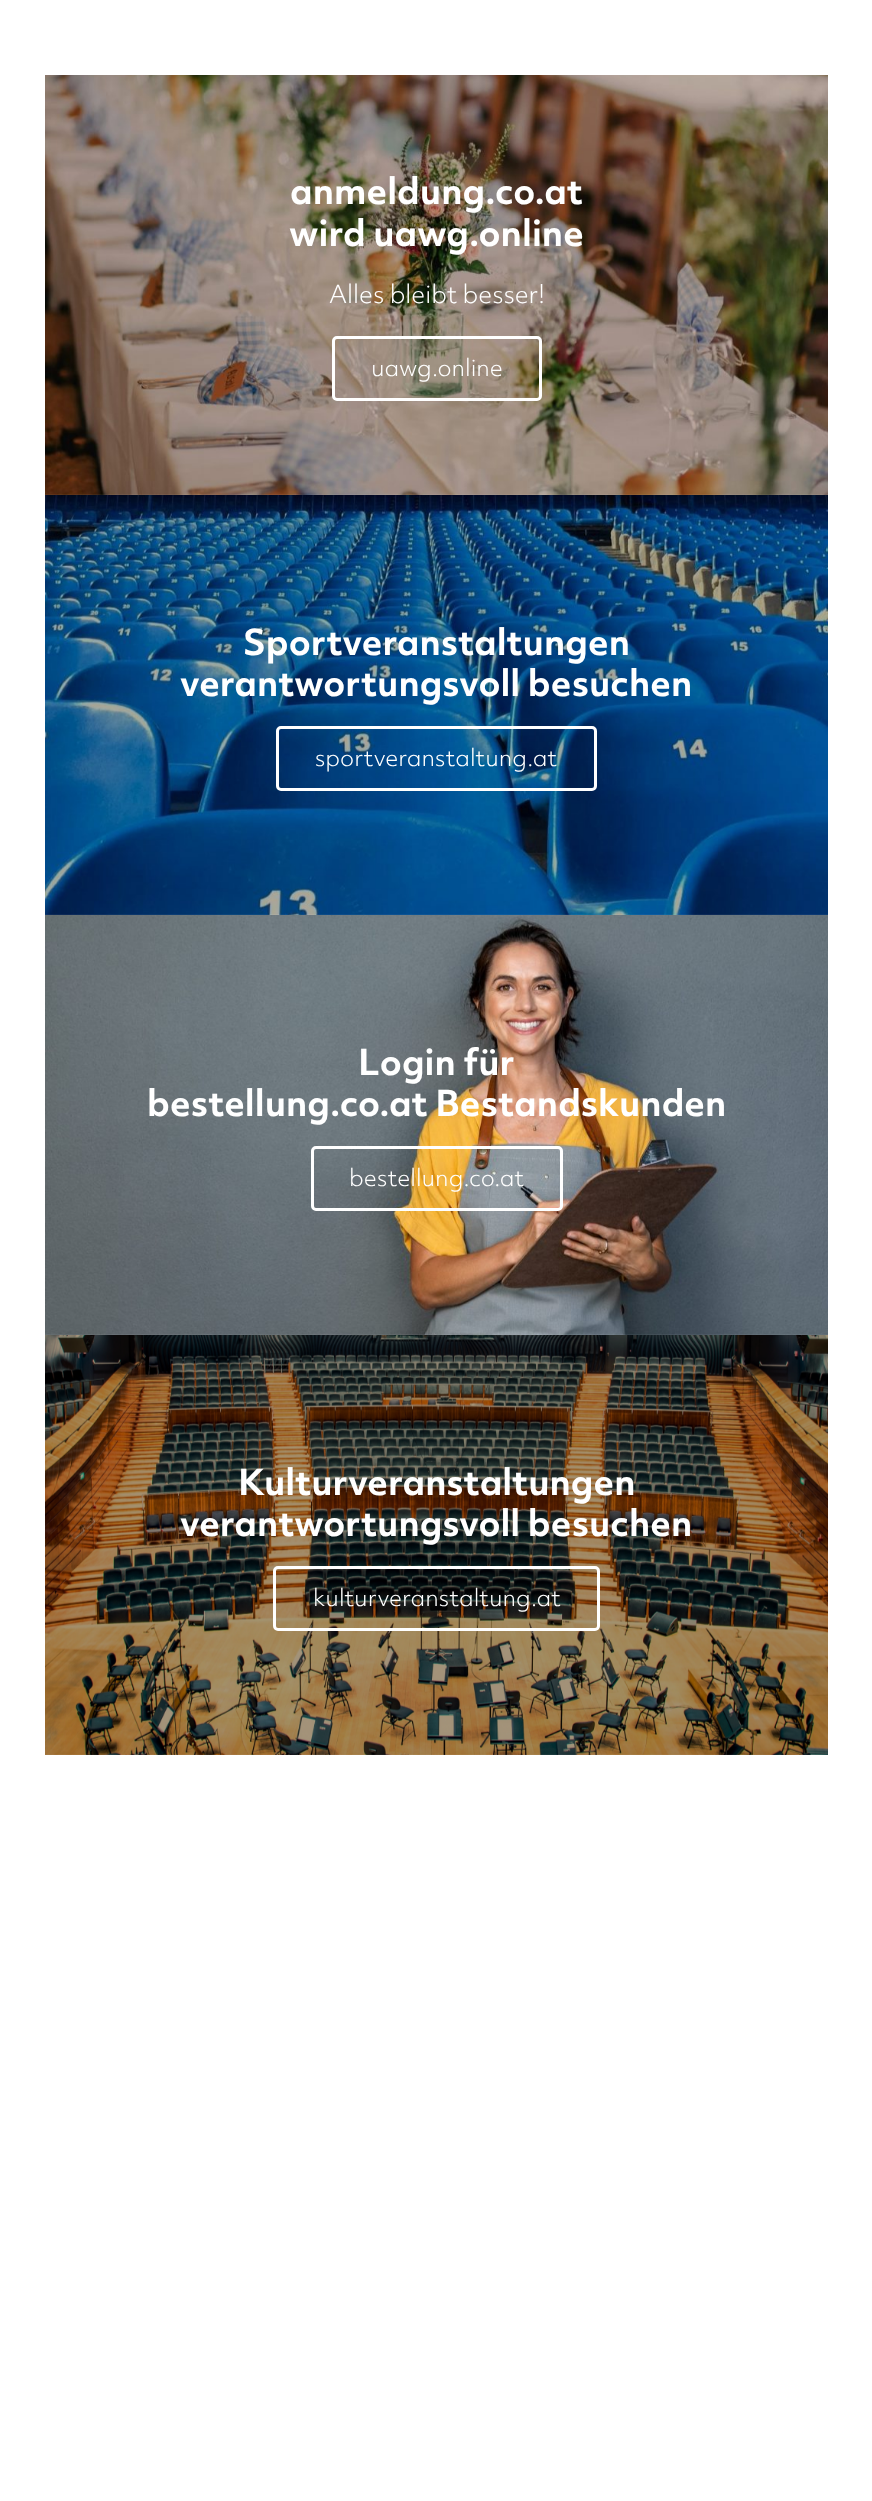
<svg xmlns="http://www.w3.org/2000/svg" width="872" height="2501">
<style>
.a{font:bold 34.5px 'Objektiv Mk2';fill:#fff}
.b{font:300 24px 'Objektiv Mk2';fill:#fff}
.c{font:300 22.5px 'Objektiv Mk2';fill:#fff}
</style>
<rect width="100%" height="100%" fill="#fff"/>
<image href="1.png" x="45" y="75" width="783" height="420"/>
<rect fill="none" stroke="#fff" stroke-width="3" x="333.5" y="337.5" width="207" height="62" rx="3.5"/>
<image href="2.png" x="45" y="495" width="783" height="420"/>
<rect fill="none" stroke="#fff" stroke-width="3" x="277.5" y="727.5" width="318" height="62" rx="3.5"/>
<image href="3.png" x="45" y="915" width="783" height="420"/>
<rect fill="none" stroke="#fff" stroke-width="3" x="312.5" y="1147.5" width="249" height="62" rx="3.5"/>
<image href="4.png" x="45" y="1335" width="783" height="420"/>
<rect fill="none" stroke="#fff" stroke-width="3" x="274.5" y="1567.5" width="324" height="62" rx="3.5"/>
<text class="a" x="290" y="204">anmeldung.co.at</text>
<text class="a" x="289" y="246">wird uawg.online</text>
<text class="b" x="329" y="303">Alles bleibt besser!</text>
<text class="c" x="371" y="376">uawg.online</text>
<text class="a" x="243" y="655">Sportveranstaltungen</text>
<text class="a" x="180" y="696">verantwortungsvoll besuchen</text>
<text class="c" x="315" y="766">sportveranstaltung.at</text>
<text class="a" x="358" y="1075">Login für</text>
<text class="a" x="147" y="1116">bestellung.co.at Bestandskunden</text>
<text class="c" x="349" y="1186">bestellung.co.at</text>
<text class="a" x="238" y="1495">Kulturveranstaltungen</text>
<text class="a" x="180" y="1536">verantwortungsvoll besuchen</text>
<text class="c" x="313" y="1606">kulturveranstaltung.at</text>
</svg>
